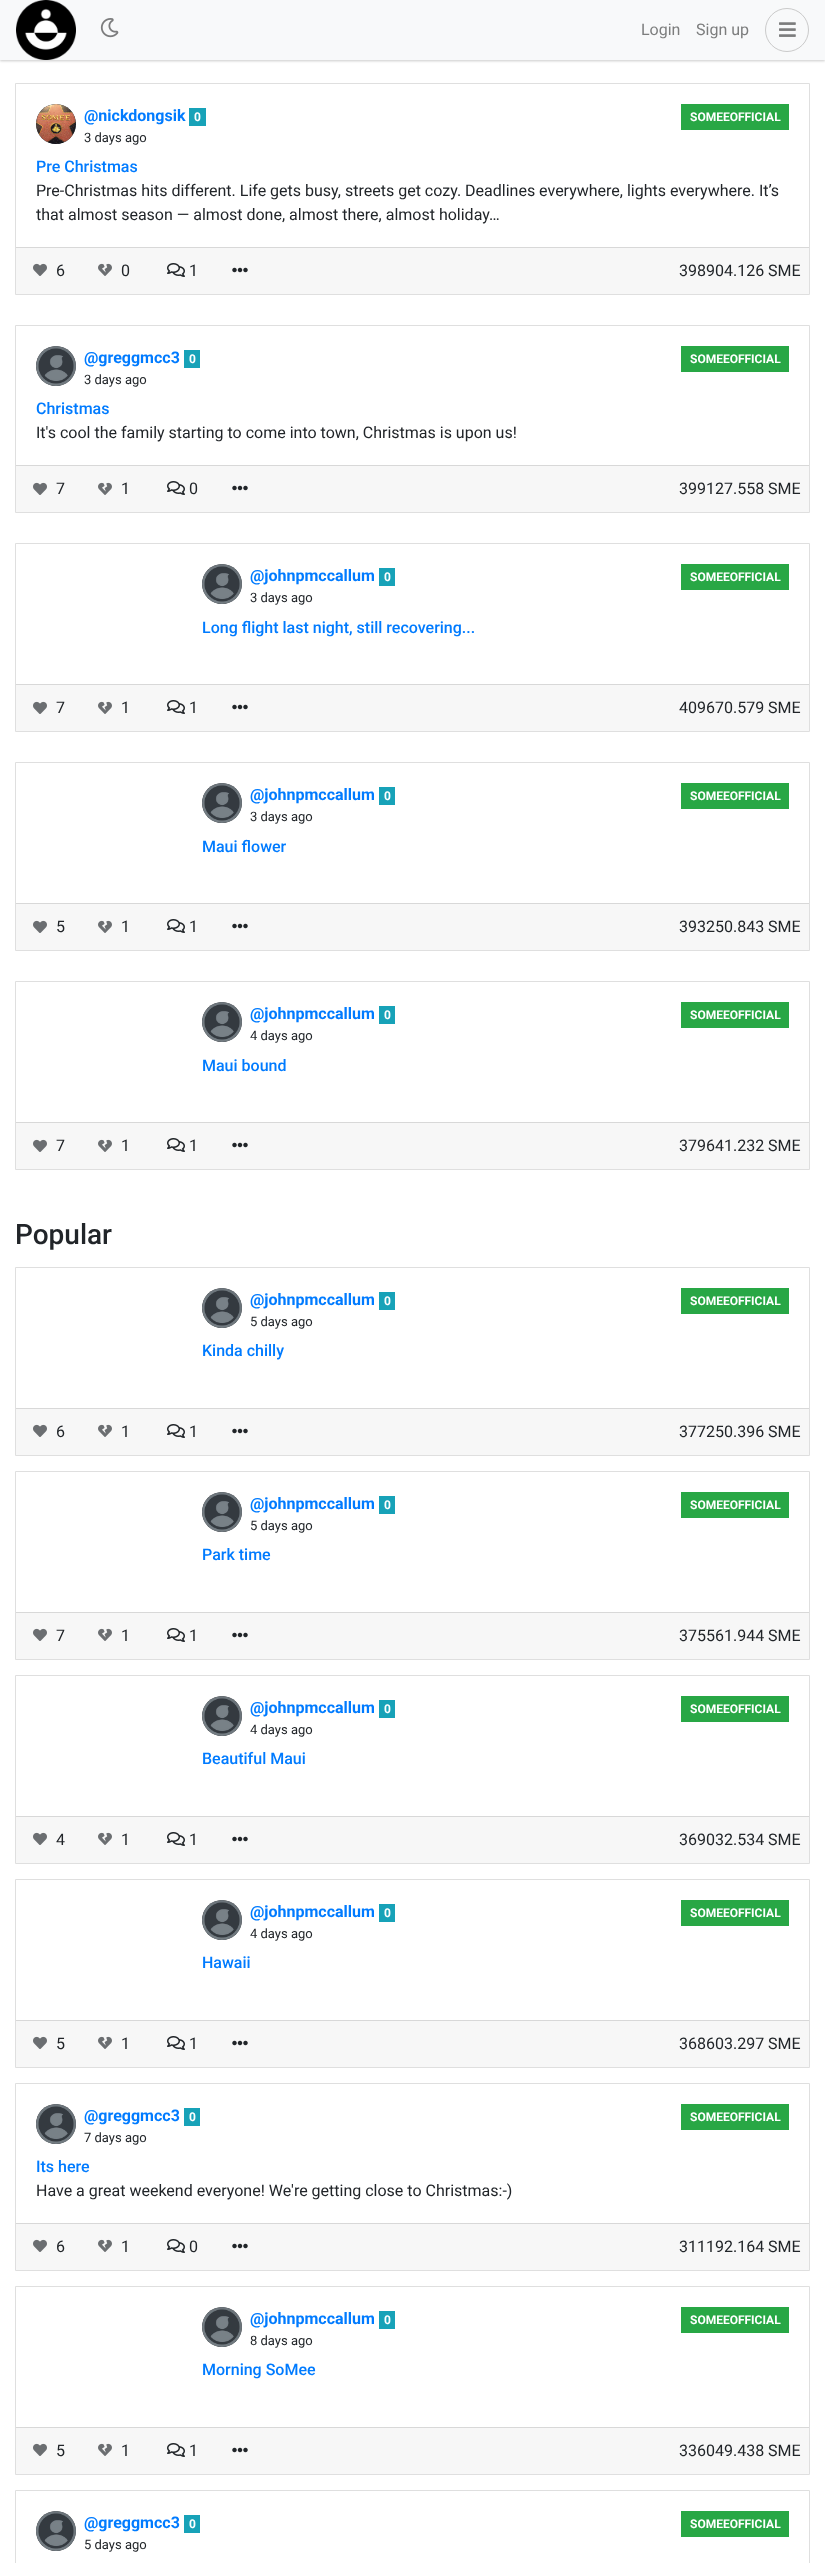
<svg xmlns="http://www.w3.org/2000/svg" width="825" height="2563">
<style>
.a{font:16px Roboto;fill:#7c7d7d}
.b{font:bold 16px Roboto;fill:#007bff}
.c{font:bold 12px Roboto;fill:#fff}
.d{font:13px Roboto;fill:#212529}
.e{font:500 16px Roboto;fill:#007bff}
.f{font:16px Roboto;fill:#212529}
.g{font:500 28px Roboto;fill:#212529}
</style>
<rect width="100%" height="100%" fill="#fff"/>
<path fill="#00000024" filter="blur(1px)" d="M0 1h825v60H0z"/>
<path fill="#00000012" filter="blur(1.5px)" d="M0 1h825v60H0z"/>
<path fill="#f8f9fa" d="M0 0h825v60H0z"/>
<image href="1.png" x="16" y="0" width="60" height="60"/>
<image href="2.png" x="100" y="18" width="19" height="20"/>
<circle fill="none" stroke="#cacaca" cx="787" cy="30" r="21.5"/>
<image href="3.png" x="779" y="22" width="17" height="15"/>
<path fill="none" stroke="#dfdfdf" d="M15.5 83.5h794v211H15.5z"/>
<circle fill="#343a40" cx="56" cy="124" r="20"/>
<image href="4.png" x="36" y="104" width="40" height="40"/>
<path fill="#17a2b8" d="M189 108h17v18H189z"/>
<path fill="#28a745" d="M681 104h108v26H681z"/>
<path fill="#f7f7f7" d="M16 248h793v46H16z"/>
<path fill="#d8d8d8" d="M16 247h793v1H16z"/>
<image href="5.png" x="33" y="263" width="14" height="13"/>
<image href="6.png" x="98" y="263" width="14" height="13"/>
<image href="7.png" x="167" y="263" width="18" height="14"/>
<image href="8.png" x="232" y="267" width="16" height="6"/>
<path fill="none" stroke="#dfdfdf" d="M15.5 325.5h794v187H15.5z"/>
<circle fill="#343a40" cx="56" cy="366" r="20"/>
<image href="9.png" x="36" y="346" width="40" height="40"/>
<path fill="#17a2b8" d="M184 350h16v18H184z"/>
<path fill="#28a745" d="M681 346h108v26H681z"/>
<path fill="#f7f7f7" d="M16 466h793v46H16z"/>
<path fill="#d8d8d8" d="M16 465h793v1H16z"/>
<image href="5.png" x="33" y="482" width="14" height="13"/>
<image href="6.png" x="98" y="482" width="14" height="13"/>
<image href="7.png" x="167" y="481" width="18" height="14"/>
<image href="8.png" x="232" y="485" width="16" height="6"/>
<path fill="none" stroke="#dfdfdf" d="M15.5 543.5h794v188H15.5z"/>
<circle fill="#343a40" cx="222" cy="584" r="20"/>
<image href="9.png" x="202" y="564" width="40" height="40"/>
<path fill="#17a2b8" d="M379 568h16v18H379z"/>
<path fill="#28a745" d="M681 564h108v26H681z"/>
<path fill="#f7f7f7" d="M16 685h793v46H16z"/>
<path fill="#d8d8d8" d="M16 684h793v1H16z"/>
<image href="5.png" x="33" y="701" width="14" height="13"/>
<image href="6.png" x="98" y="701" width="14" height="13"/>
<image href="7.png" x="167" y="700" width="18" height="14"/>
<image href="8.png" x="232" y="704" width="16" height="6"/>
<path fill="none" stroke="#dfdfdf" d="M15.5 762.5h794v188H15.5z"/>
<circle fill="#343a40" cx="222" cy="803" r="20"/>
<image href="9.png" x="202" y="783" width="40" height="40"/>
<path fill="#17a2b8" d="M379 787h16v18H379z"/>
<path fill="#28a745" d="M681 783h108v26H681z"/>
<path fill="#f7f7f7" d="M16 904h793v46H16z"/>
<path fill="#d8d8d8" d="M16 903h793v1H16z"/>
<image href="5.png" x="33" y="920" width="14" height="13"/>
<image href="6.png" x="98" y="920" width="14" height="13"/>
<image href="7.png" x="167" y="919" width="18" height="14"/>
<image href="8.png" x="232" y="923" width="16" height="6"/>
<path fill="none" stroke="#dfdfdf" d="M15.5 981.5h794v188H15.5z"/>
<circle fill="#343a40" cx="222" cy="1022" r="20"/>
<image href="10.png" x="202" y="1002" width="40" height="40"/>
<path fill="#17a2b8" d="M379 1006h16v18H379z"/>
<path fill="#28a745" d="M681 1002h108v26H681z"/>
<path fill="#f7f7f7" d="M16 1123h793v46H16z"/>
<path fill="#d8d8d8" d="M16 1122h793v1H16z"/>
<image href="5.png" x="33" y="1139" width="14" height="13"/>
<image href="6.png" x="98" y="1139" width="14" height="13"/>
<image href="7.png" x="167" y="1138" width="18" height="14"/>
<image href="8.png" x="232" y="1142" width="16" height="6"/>
<path fill="none" stroke="#dfdfdf" d="M15.5 1267.5h794v188H15.5z"/>
<circle fill="#343a40" cx="222" cy="1308" r="20"/>
<image href="9.png" x="202" y="1288" width="40" height="40"/>
<path fill="#17a2b8" d="M379 1292h16v18H379z"/>
<path fill="#28a745" d="M681 1288h108v26H681z"/>
<path fill="#f7f7f7" d="M16 1409h793v46H16z"/>
<path fill="#d8d8d8" d="M16 1408h793v1H16z"/>
<image href="5.png" x="33" y="1424" width="14" height="13"/>
<image href="6.png" x="98" y="1424" width="14" height="13"/>
<image href="7.png" x="167" y="1424" width="18" height="14"/>
<image href="8.png" x="232" y="1428" width="16" height="6"/>
<path fill="none" stroke="#dfdfdf" d="M15.5 1471.5h794v188H15.5z"/>
<circle fill="#343a40" cx="222" cy="1512" r="20"/>
<image href="11.png" x="202" y="1492" width="40" height="40"/>
<path fill="#17a2b8" d="M379 1496h16v18H379z"/>
<path fill="#28a745" d="M681 1492h108v26H681z"/>
<path fill="#f7f7f7" d="M16 1613h793v46H16z"/>
<path fill="#d8d8d8" d="M16 1612h793v1H16z"/>
<image href="5.png" x="33" y="1628" width="14" height="13"/>
<image href="6.png" x="98" y="1628" width="14" height="13"/>
<image href="7.png" x="167" y="1628" width="18" height="14"/>
<image href="8.png" x="232" y="1632" width="16" height="6"/>
<path fill="none" stroke="#dfdfdf" d="M15.5 1675.5h794v188H15.5z"/>
<circle fill="#343a40" cx="222" cy="1716" r="20"/>
<image href="9.png" x="202" y="1696" width="40" height="40"/>
<path fill="#17a2b8" d="M379 1700h16v18H379z"/>
<path fill="#28a745" d="M681 1696h108v26H681z"/>
<path fill="#f7f7f7" d="M16 1817h793v46H16z"/>
<path fill="#d8d8d8" d="M16 1816h793v1H16z"/>
<image href="5.png" x="33" y="1832" width="14" height="13"/>
<image href="6.png" x="98" y="1832" width="14" height="13"/>
<image href="7.png" x="167" y="1832" width="18" height="14"/>
<image href="8.png" x="232" y="1836" width="16" height="6"/>
<path fill="none" stroke="#dfdfdf" d="M15.5 1879.5h794v188H15.5z"/>
<circle fill="#343a40" cx="222" cy="1920" r="20"/>
<image href="9.png" x="202" y="1900" width="40" height="40"/>
<path fill="#17a2b8" d="M379 1904h16v18H379z"/>
<path fill="#28a745" d="M681 1900h108v26H681z"/>
<path fill="#f7f7f7" d="M16 2021h793v46H16z"/>
<path fill="#d8d8d8" d="M16 2020h793v1H16z"/>
<image href="5.png" x="33" y="2036" width="14" height="13"/>
<image href="6.png" x="98" y="2036" width="14" height="13"/>
<image href="7.png" x="167" y="2036" width="18" height="14"/>
<image href="8.png" x="232" y="2040" width="16" height="6"/>
<path fill="none" stroke="#dfdfdf" d="M15.5 2083.5h794v187H15.5z"/>
<circle fill="#343a40" cx="56" cy="2124" r="20"/>
<image href="9.png" x="36" y="2104" width="40" height="40"/>
<path fill="#17a2b8" d="M184 2108h16v18H184z"/>
<path fill="#28a745" d="M681 2104h108v26H681z"/>
<path fill="#f7f7f7" d="M16 2224h793v46H16z"/>
<path fill="#d8d8d8" d="M16 2223h793v1H16z"/>
<image href="5.png" x="33" y="2239" width="14" height="13"/>
<image href="6.png" x="98" y="2239" width="14" height="13"/>
<image href="7.png" x="167" y="2239" width="18" height="14"/>
<image href="8.png" x="232" y="2243" width="16" height="6"/>
<path fill="none" stroke="#dfdfdf" d="M15.5 2286.5h794v188H15.5z"/>
<circle fill="#343a40" cx="222" cy="2327" r="20"/>
<image href="9.png" x="202" y="2307" width="40" height="40"/>
<path fill="#17a2b8" d="M379 2311h16v18H379z"/>
<path fill="#28a745" d="M681 2307h108v26H681z"/>
<path fill="#f7f7f7" d="M16 2428h793v46H16z"/>
<path fill="#d8d8d8" d="M16 2427h793v1H16z"/>
<image href="5.png" x="33" y="2443" width="14" height="13"/>
<image href="6.png" x="98" y="2443" width="14" height="13"/>
<image href="7.png" x="167" y="2443" width="18" height="14"/>
<image href="8.png" x="232" y="2447" width="16" height="6"/>
<path fill="none" stroke="#dfdfdf" d="M15.5 2490.5h794v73H15.5z"/>
<circle fill="#343a40" cx="56" cy="2531" r="20"/>
<image href="12.png" x="36" y="2511" width="40" height="40"/>
<path fill="#17a2b8" d="M184 2515h16v18H184z"/>
<path fill="#28a745" d="M681 2511h108v26H681z"/>
<text class="a" x="641" y="35">Login</text>
<text class="a" x="696" y="35">Sign up</text>
<text class="b" x="84" y="121">@nickdongsik</text>
<text class="c" x="194" y="121">0</text>
<text class="d" x="84" y="142">3 days ago</text>
<text class="c" x="690" y="121">SOMEEOFFICIAL</text>
<text class="e" x="36" y="172">Pre Christmas</text>
<text class="f" x="36" y="196">Pre-Christmas hits different. Life gets busy, streets get cozy. Deadlines everywhere, lights everywhere. It’s</text>
<text class="f" x="36" y="220">that almost season — almost done, almost there, almost holiday…</text>
<text class="f" x="56" y="276">6</text>
<text class="f" x="121" y="276">0</text>
<text class="f" x="189" y="276">1</text>
<text class="f" x="679" y="276">398904.126 SME</text>
<text class="b" x="84" y="363">@greggmcc3</text>
<text class="c" x="189" y="363">0</text>
<text class="d" x="84" y="384">3 days ago</text>
<text class="c" x="690" y="363">SOMEEOFFICIAL</text>
<text class="e" x="36" y="414">Christmas</text>
<text class="f" x="36" y="438">It's cool the family starting to come into town, Christmas is upon us!</text>
<text class="f" x="56" y="494">7</text>
<text class="f" x="121" y="494">1</text>
<text class="f" x="189" y="494">0</text>
<text class="f" x="679" y="494">399127.558 SME</text>
<text class="b" x="250" y="581">@johnpmccallum</text>
<text class="c" x="384" y="581">0</text>
<text class="d" x="250" y="602">3 days ago</text>
<text class="c" x="690" y="581">SOMEEOFFICIAL</text>
<text class="e" x="202" y="633">Long flight last night, still recovering...</text>
<text class="f" x="56" y="713">7</text>
<text class="f" x="121" y="713">1</text>
<text class="f" x="189" y="713">1</text>
<text class="f" x="679" y="713">409670.579 SME</text>
<text class="b" x="250" y="800">@johnpmccallum</text>
<text class="c" x="384" y="800">0</text>
<text class="d" x="250" y="821">3 days ago</text>
<text class="c" x="690" y="800">SOMEEOFFICIAL</text>
<text class="e" x="202" y="852">Maui flower</text>
<text class="f" x="56" y="932">5</text>
<text class="f" x="121" y="932">1</text>
<text class="f" x="189" y="932">1</text>
<text class="f" x="679" y="932">393250.843 SME</text>
<text class="b" x="250" y="1019">@johnpmccallum</text>
<text class="c" x="384" y="1019">0</text>
<text class="d" x="250" y="1040">4 days ago</text>
<text class="c" x="690" y="1019">SOMEEOFFICIAL</text>
<text class="e" x="202" y="1071">Maui bound</text>
<text class="f" x="56" y="1151">7</text>
<text class="f" x="121" y="1151">1</text>
<text class="f" x="189" y="1151">1</text>
<text class="f" x="679" y="1151">379641.232 SME</text>
<text class="g" x="15" y="1244">Popular</text>
<text class="b" x="250" y="1305">@johnpmccallum</text>
<text class="c" x="384" y="1305">0</text>
<text class="d" x="250" y="1326">5 days ago</text>
<text class="c" x="690" y="1305">SOMEEOFFICIAL</text>
<text class="e" x="202" y="1356">Kinda chilly</text>
<text class="f" x="56" y="1437">6</text>
<text class="f" x="121" y="1437">1</text>
<text class="f" x="189" y="1437">1</text>
<text class="f" x="679" y="1437">377250.396 SME</text>
<text class="b" x="250" y="1509">@johnpmccallum</text>
<text class="c" x="384" y="1509">0</text>
<text class="d" x="250" y="1530">5 days ago</text>
<text class="c" x="690" y="1509">SOMEEOFFICIAL</text>
<text class="e" x="202" y="1560">Park time</text>
<text class="f" x="56" y="1641">7</text>
<text class="f" x="121" y="1641">1</text>
<text class="f" x="189" y="1641">1</text>
<text class="f" x="679" y="1641">375561.944 SME</text>
<text class="b" x="250" y="1713">@johnpmccallum</text>
<text class="c" x="384" y="1713">0</text>
<text class="d" x="250" y="1734">4 days ago</text>
<text class="c" x="690" y="1713">SOMEEOFFICIAL</text>
<text class="e" x="202" y="1764">Beautiful Maui</text>
<text class="f" x="56" y="1845">4</text>
<text class="f" x="121" y="1845">1</text>
<text class="f" x="189" y="1845">1</text>
<text class="f" x="679" y="1845">369032.534 SME</text>
<text class="b" x="250" y="1917">@johnpmccallum</text>
<text class="c" x="384" y="1917">0</text>
<text class="d" x="250" y="1938">4 days ago</text>
<text class="c" x="690" y="1917">SOMEEOFFICIAL</text>
<text class="e" x="202" y="1968">Hawaii</text>
<text class="f" x="56" y="2049">5</text>
<text class="f" x="121" y="2049">1</text>
<text class="f" x="189" y="2049">1</text>
<text class="f" x="679" y="2049">368603.297 SME</text>
<text class="b" x="84" y="2121">@greggmcc3</text>
<text class="c" x="189" y="2121">0</text>
<text class="d" x="84" y="2142">7 days ago</text>
<text class="c" x="690" y="2121">SOMEEOFFICIAL</text>
<text class="e" x="36" y="2172">Its here</text>
<text class="f" x="36" y="2196">Have a great weekend everyone! We're getting close to Christmas:-)</text>
<text class="f" x="56" y="2252">6</text>
<text class="f" x="121" y="2252">1</text>
<text class="f" x="189" y="2252">0</text>
<text class="f" x="679" y="2252">311192.164 SME</text>
<text class="b" x="250" y="2324">@johnpmccallum</text>
<text class="c" x="384" y="2324">0</text>
<text class="d" x="250" y="2345">8 days ago</text>
<text class="c" x="690" y="2324">SOMEEOFFICIAL</text>
<text class="e" x="202" y="2375">Morning SoMee</text>
<text class="f" x="56" y="2456">5</text>
<text class="f" x="121" y="2456">1</text>
<text class="f" x="189" y="2456">1</text>
<text class="f" x="679" y="2456">336049.438 SME</text>
<text class="b" x="84" y="2528">@greggmcc3</text>
<text class="c" x="189" y="2528">0</text>
<text class="d" x="84" y="2549">5 days ago</text>
<text class="c" x="690" y="2528">SOMEEOFFICIAL</text>
</svg>
